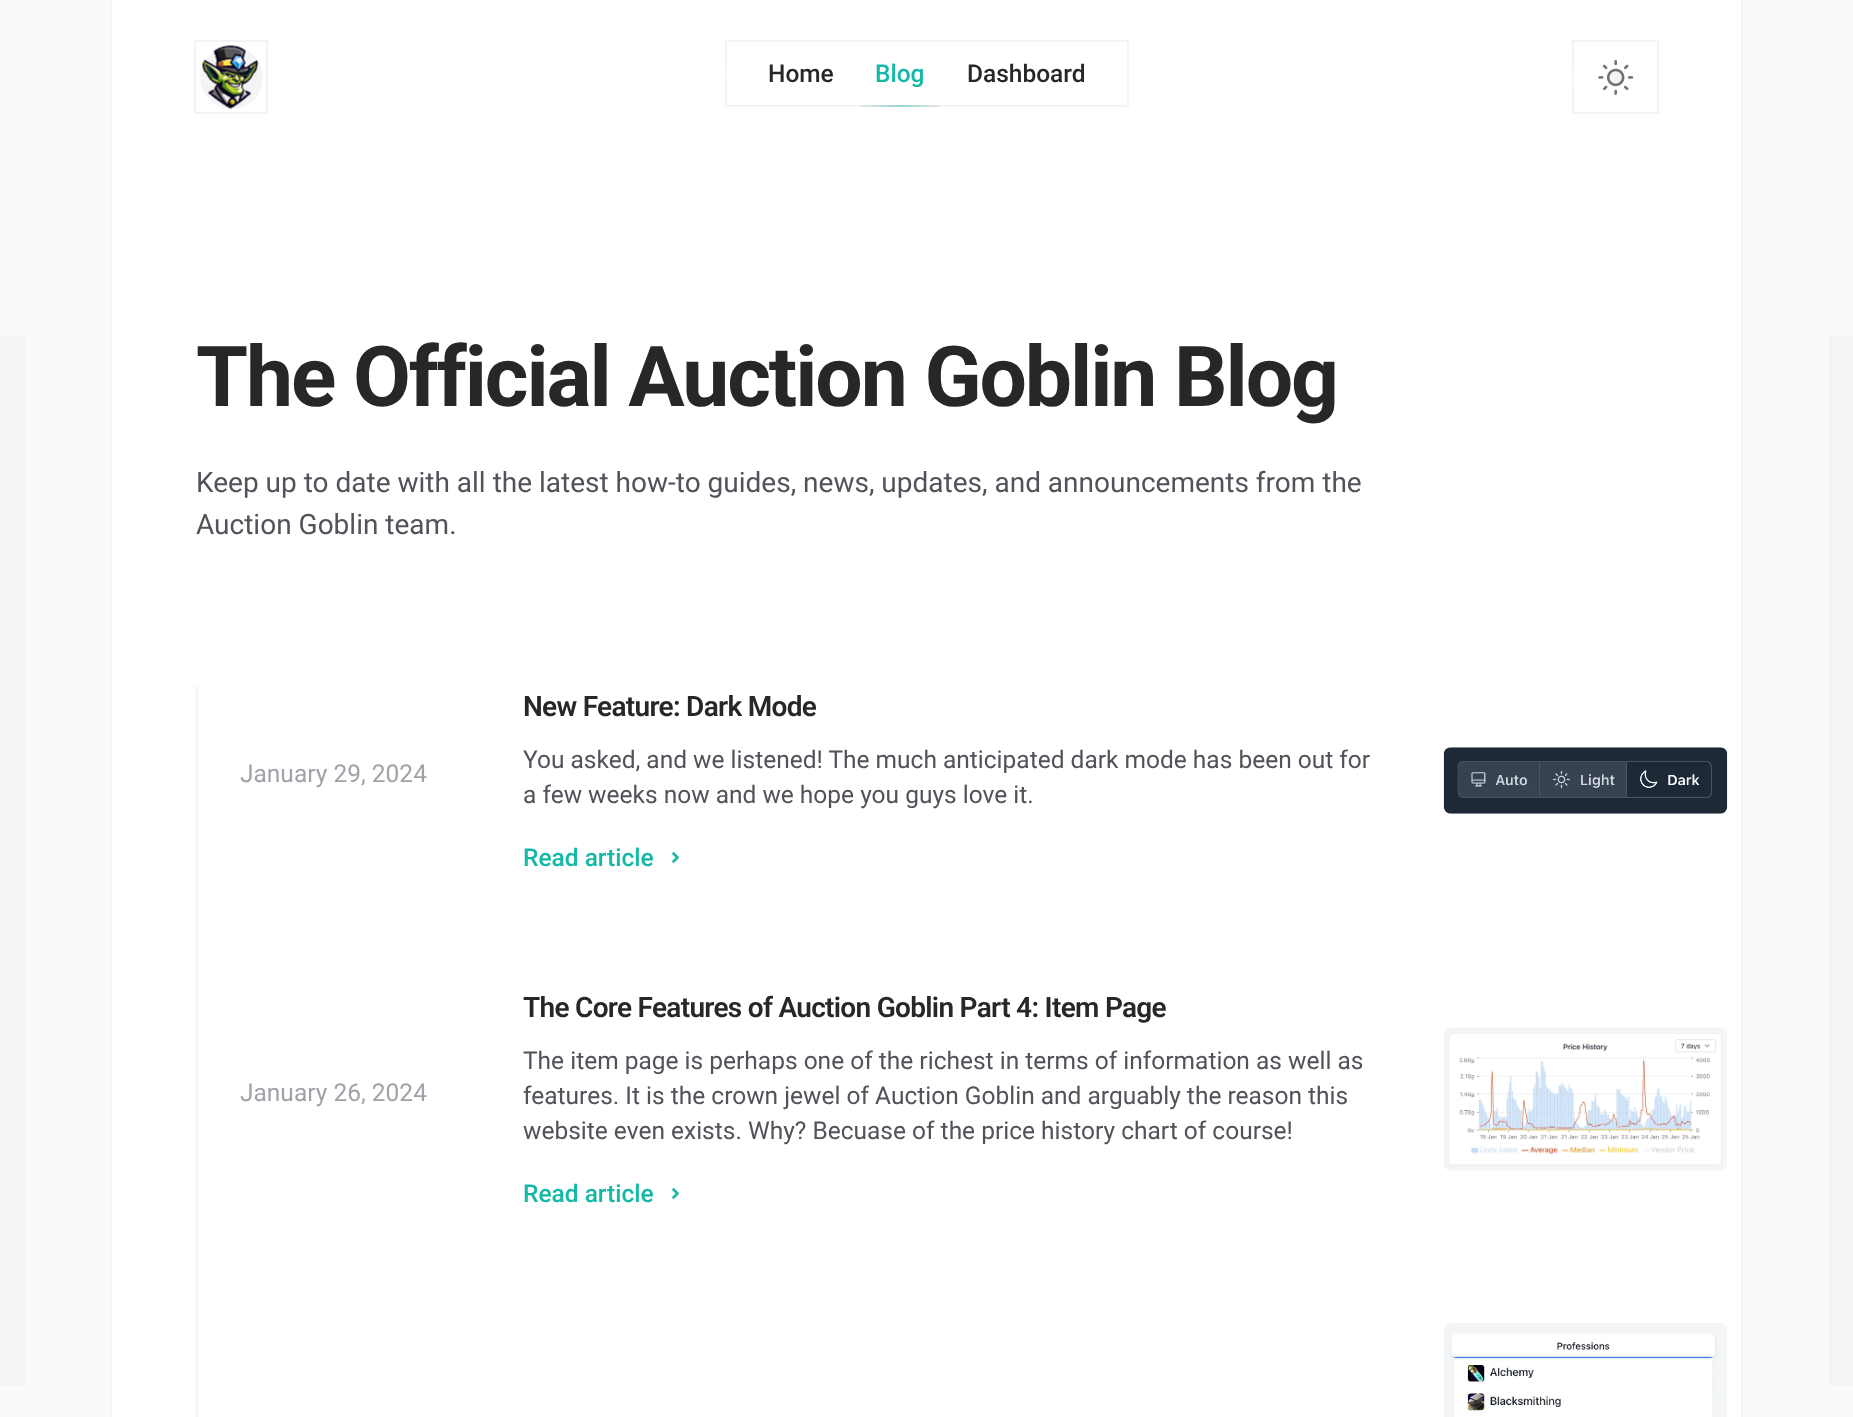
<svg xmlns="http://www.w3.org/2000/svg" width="1853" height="1417">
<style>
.a{font:500 24.5px Roboto;fill:#27272a}
.b{font:500 24.5px Roboto;fill:#14b8a6}
.c{font:bold 84px Roboto;letter-spacing:-2.1px;fill:#27272a}
.d{font:28px Roboto;fill:#52525b}
.e{font:24.5px Roboto;fill:#a1a1aa}
.f{font:600 28px Roboto;letter-spacing:-0.7px;fill:#27272a}
.g{font:24.5px Roboto;fill:#52525b}
</style>
<defs>
<linearGradient id="g1" gradientUnits="userSpaceOnUse" x1="861" y1="106" x2="940" y2="106"><stop offset="0" stop-color="#e7e7e7"/><stop offset="0.5" stop-color="#93d4cd"/><stop offset="1" stop-color="#e7e7e7"/></linearGradient>
</defs>
<rect width="100%" height="100%" fill="#fafafa"/>
<path fill="none" stroke="#f4f4f5" stroke-width="2" d="M111 -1h1631v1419H111z"/>
<path fill="#fff" d="M112 0h1629v1417H112z"/>
<path fill="#f3f4f6" d="M0 336h25v1050H0z"/>
<path fill="#f3f4f6" d="M1829 336h24v1050H1829z"/>
<path fill="none" stroke="#18181b0d" stroke-width="2" d="M195 41h72v72H195z"/>
<circle fill="#ffffffe6" cx="231" cy="77" r="35"/>
<circle fill="#f4f4f5" cx="231.5" cy="77.5" r="31.5"/>
<image href="1.png" x="202" y="45" width="57" height="64"/>
<path fill="none" stroke="#18181b0d" stroke-width="2" d="M726 41h402v65H726z"/>
<rect fill="#ffffffe6" x="726" y="42" width="401" height="63" rx="31.5"/>
<path fill="url(#g1)" d="M861 105h79v2H861z"/>
<path fill="none" stroke="#18181b0d" stroke-width="2" d="M1573 41h85v72H1573z"/>
<rect fill="#ffffffe6" x="1573" y="42" width="84" height="70" rx="35"/>
<image href="2.png" x="1598" y="60" width="36" height="35"/>
<path fill="#f4f4f5" d="M196 686h2v731H196z"/>
<path fill="none" stroke="#14b8a6" stroke-width="2.6" stroke-linecap="round" stroke-linejoin="round" d="M673.5 853.5l4 4l-4 4"/>
<image href="3.png" x="1443" y="747" width="285" height="67"/>
<path fill="none" stroke="#14b8a6" stroke-width="2.6" stroke-linecap="round" stroke-linejoin="round" d="M673.5 1189.5l4 4l-4 4"/>
<image href="4.png" x="1444" y="1027" width="283" height="144"/>
<image href="5.png" x="1444" y="1323" width="283" height="94"/>
<text class="a" x="768" y="82">Home</text>
<text class="b" x="875" y="82">Blog</text>
<text class="a" x="967" y="82">Dashboard</text>
<text class="c" x="196" y="406">The Official Auction Goblin Blog</text>
<text class="d" x="196" y="492">Keep up to date with all the latest how-to guides, news, updates, and announcements from the</text>
<text class="d" x="196" y="534">Auction Goblin team.</text>
<text class="e" x="240" y="782">January 29, 2024</text>
<text class="f" x="523" y="716">New Feature: Dark Mode</text>
<text class="g" x="523" y="768">You asked, and we listened! The much anticipated dark mode has been out for</text>
<text class="g" x="523" y="803">a few weeks now and we hope you guys love it.</text>
<text class="b" x="523" y="866">Read article</text>
<text class="e" x="240" y="1101">January 26, 2024</text>
<text class="f" x="523" y="1017">The Core Features of Auction Goblin Part 4: Item Page</text>
<text class="g" x="523" y="1069">The item page is perhaps one of the richest in terms of information as well as</text>
<text class="g" x="523" y="1104">features. It is the crown jewel of Auction Goblin and arguably the reason this</text>
<text class="g" x="523" y="1139">website even exists. Why? Becuase of the price history chart of course!</text>
<text class="b" x="523" y="1202">Read article</text>
</svg>
